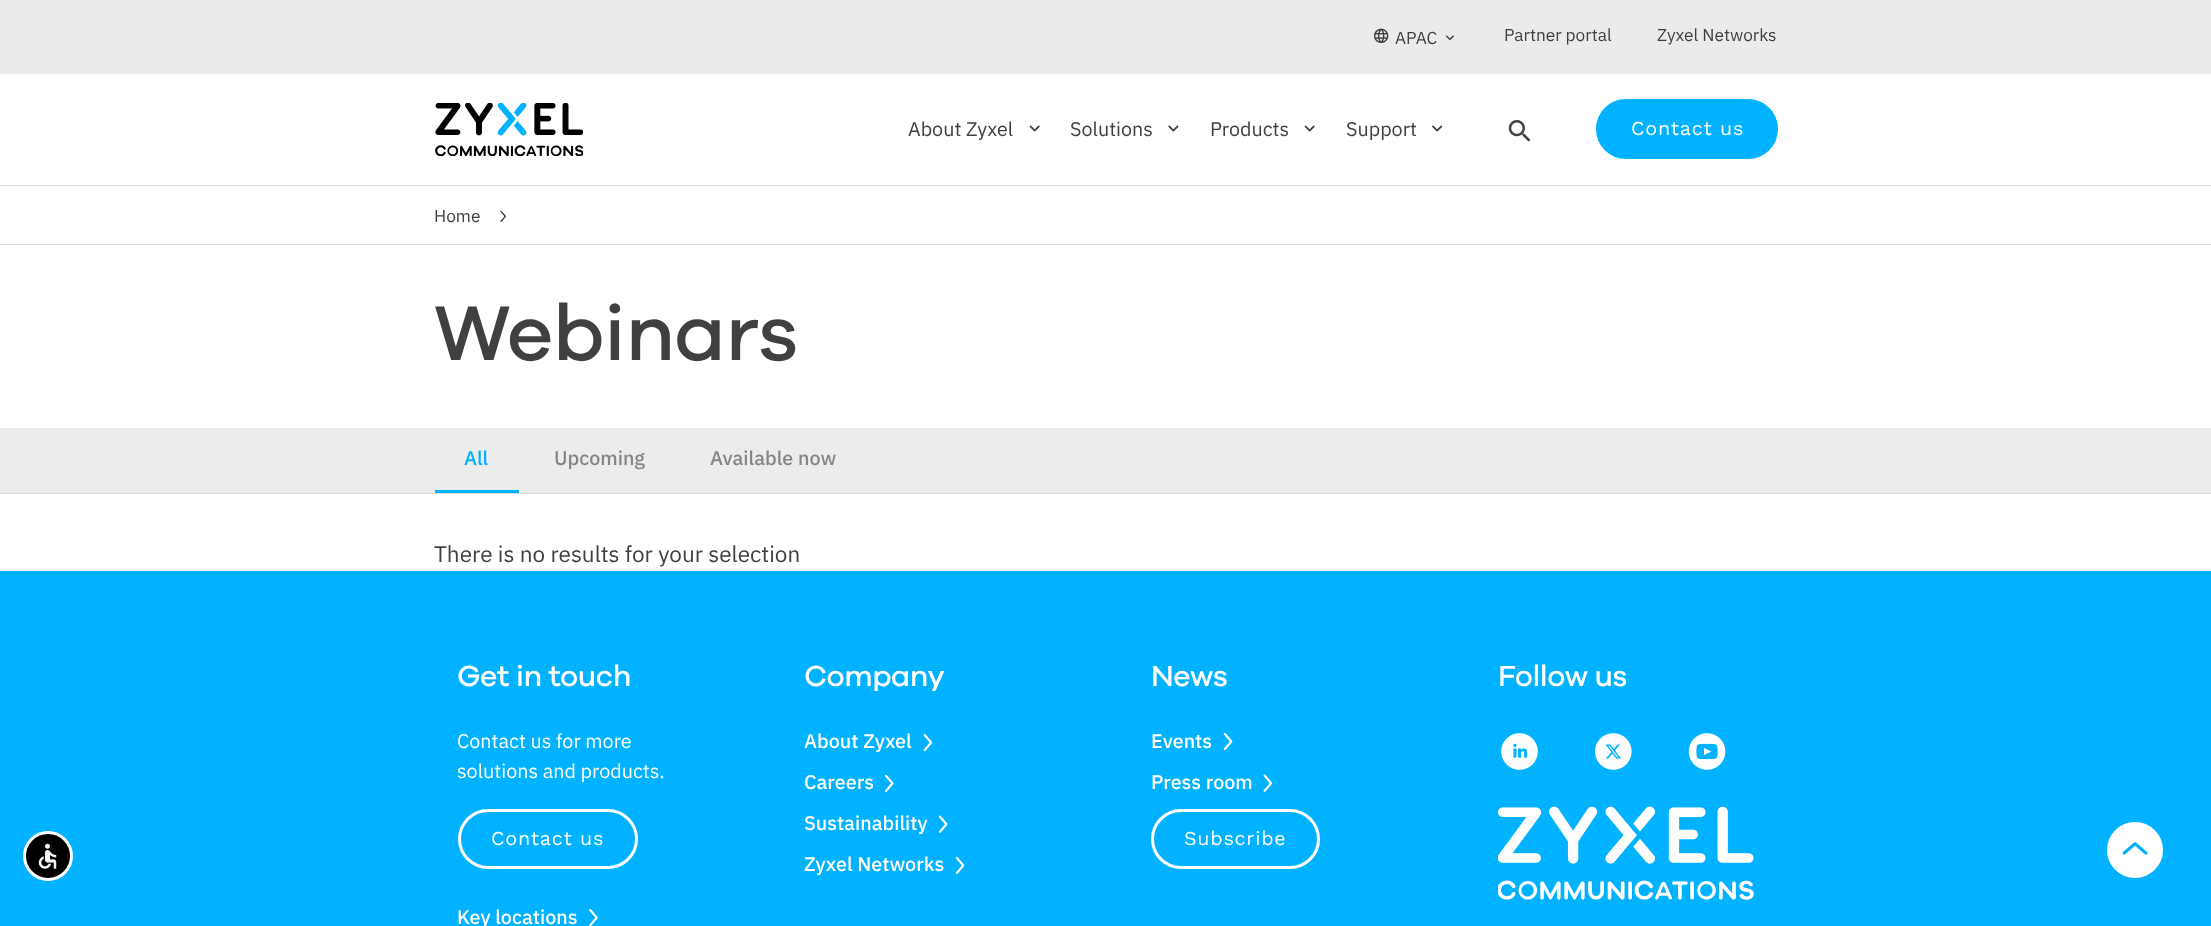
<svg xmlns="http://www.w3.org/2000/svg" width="2211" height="926">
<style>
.a{font:17.25px IBM Plex Sans;fill:#404040}
.b{font:19.75px IBM Plex Sans;fill:#404040}
.c{font:19.75px Work Sans;letter-spacing:0.75px;fill:#fff}
.d{font:500 80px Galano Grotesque;letter-spacing:-0.5px;fill:#404040}
.e{font:500 19.75px IBM Plex Sans;fill:#00b2ff}
.f{font:500 19.75px IBM Plex Sans;fill:#858585}
.g{font:22.5px IBM Plex Sans;fill:#404040}
.h{font:500 30px Galano Grotesque;letter-spacing:-0.5px;fill:#fff}
.i{font:19.75px IBM Plex Sans;fill:#fff}
.j{font:500 19.75px IBM Plex Sans;fill:#fff}
</style>
<rect width="100%" height="100%" fill="#fff"/>
<path fill="#00b2ff" d="M0 571h2211v355H0z"/>
<circle fill="#000" stroke="#fff" stroke-width="3" cx="48" cy="856" r="23.5"/>
<image href="1.png" x="38" y="843" width="19" height="26"/>
<image href="2.png" x="435" y="103" width="148" height="53"/>
<path fill="#ebebeb" d="M0 0h2211v74H0z"/>
<image href="3.png" x="1374" y="28" width="15" height="16"/>
<image href="4.png" x="1445" y="35" width="9" height="6"/>
<image href="5.png" x="1029" y="125" width="11" height="7"/>
<image href="6.png" x="1168" y="125" width="11" height="7"/>
<image href="5.png" x="1304" y="125" width="11" height="7"/>
<image href="7.png" x="1432" y="125" width="11" height="7"/>
<image href="8.png" x="1508" y="120" width="22" height="22"/>
<rect fill="#00b2ff" stroke="#00b2ff" stroke-width="3" x="1597.5" y="100.5" width="179" height="57" rx="28.5"/>
<path fill="#d9d9d9" d="M0 185h2211v1H0z"/>
<path fill="#d9d9d9" d="M0 244h2211v1H0z"/>
<image href="9.png" x="500" y="210" width="6" height="12"/>
<path fill="#ececec" d="M0 428h2211v65H0z"/>
<path fill="#00b2ff" d="M435 490h84v3H435z"/>
<path fill="#d9d9d9" d="M0 493h2211v1H0z"/>
<rect fill="none" stroke="#fff" stroke-width="3" x="459.5" y="810.5" width="177" height="57" rx="28.5"/>
<image href="10.png" x="589" y="909" width="9" height="17"/>
<image href="11.png" x="923" y="733" width="10" height="19"/>
<image href="12.png" x="884" y="774" width="10" height="18"/>
<image href="13.png" x="938" y="815" width="10" height="18"/>
<image href="14.png" x="955" y="856" width="10" height="19"/>
<image href="15.png" x="1223" y="732" width="10" height="19"/>
<image href="16.png" x="1263" y="774" width="10" height="18"/>
<rect fill="none" stroke="#fff" stroke-width="3" x="1152.5" y="810.5" width="166" height="57" rx="28.5"/>
<image href="17.png" x="1501" y="733" width="37" height="37"/>
<image href="18.png" x="1595" y="733" width="37" height="37"/>
<image href="19.png" x="1688" y="733" width="38" height="37"/>
<image href="20.png" x="1498" y="806" width="256" height="94"/>
<circle fill="#fff" stroke="#00b2ff" stroke-width="3" cx="2135" cy="850" r="29.5"/>
<image href="21.png" x="2122" y="842" width="26" height="13"/>
<text class="a" x="1395" y="44">APAC</text>
<text class="a" x="1504" y="41">Partner portal</text>
<text class="a" x="1657" y="41">Zyxel Networks</text>
<text class="b" x="908" y="136">About Zyxel</text>
<text class="b" x="1070" y="136">Solutions</text>
<text class="b" x="1210" y="136">Products</text>
<text class="b" x="1346" y="136">Support</text>
<text class="c" x="1631" y="135">Contact us</text>
<text class="a" x="434" y="222">Home</text>
<text class="d" x="434" y="360">Webinars</text>
<text class="e" x="464" y="465">All</text>
<text class="f" x="554" y="465">Upcoming</text>
<text class="f" x="710" y="465">Available now</text>
<text class="g" x="434" y="562">There is no results for your selection</text>
<text class="h" x="457" y="686">Get in touch</text>
<text class="i" x="457" y="748">Contact us for more</text>
<text class="i" x="457" y="778">solutions and products.</text>
<text class="c" x="491" y="845">Contact us</text>
<text class="j" x="457" y="924">Key locations</text>
<text class="h" x="804" y="686">Company</text>
<text class="j" x="804" y="748">About Zyxel</text>
<text class="j" x="804" y="789">Careers</text>
<text class="j" x="804" y="830">Sustainability</text>
<text class="j" x="804" y="871">Zyxel Networks</text>
<text class="h" x="1151" y="686">News</text>
<text class="j" x="1151" y="748">Events</text>
<text class="j" x="1151" y="789">Press room</text>
<text class="c" x="1184" y="845">Subscribe</text>
<text class="h" x="1498" y="686">Follow us</text>
</svg>
